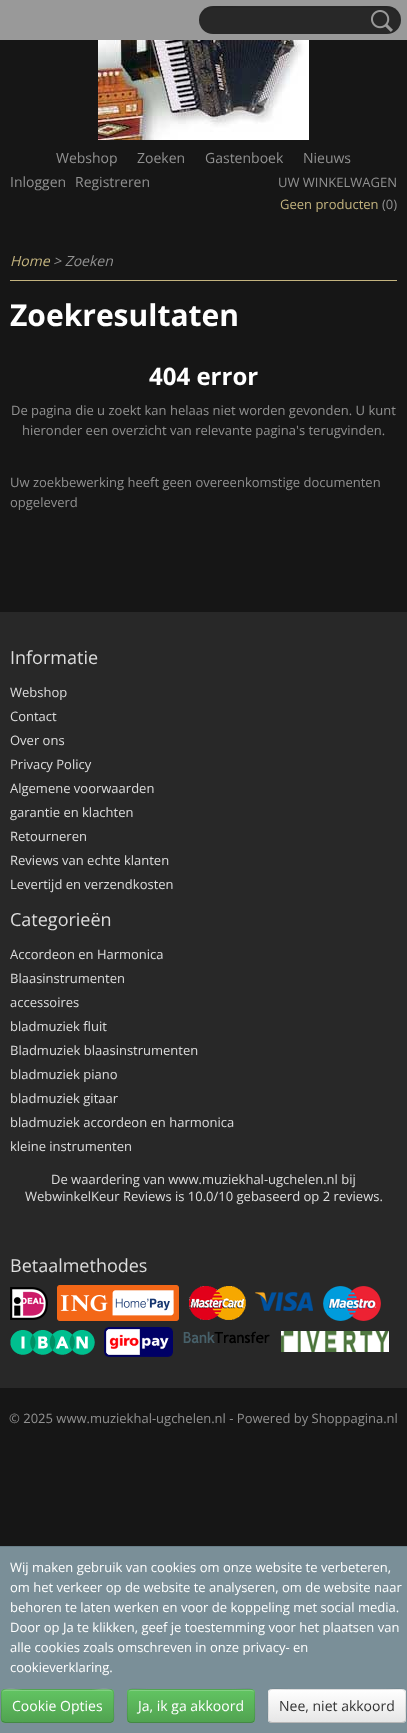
<svg xmlns="http://www.w3.org/2000/svg" width="407" height="1733">
<style>
.a{font:14px Open Sans;fill:#919191}
.b{font:13px Open Sans;fill:#919191}
.c{font:13px Open Sans;fill:#c4b47f}
.d{font:italic 14px Open Sans;fill:#c4b47f}
.e{font:italic 14px Open Sans;fill:#919191}
.f{font:bold 30px Open Sans;fill:#fff}
.g{font:bold 24px Open Sans;fill:#fff}
.h{font:18px Open Sans;fill:#ddd}
.i{font:13px Open Sans;fill:#ddd}
.j{font:13px Open Sans;fill:#fff}
.k{font:14px Open Sans;fill:#fff}
.l{font:14px Open Sans;fill:#333}
</style>
<defs>
<clipPath id="clip1"><rect x="1" y="1689" width="113" height="34" rx="4"/></clipPath>
<linearGradient id="g1" gradientUnits="userSpaceOnUse" x1="58" y1="1690" x2="58" y2="1722"><stop offset="0" stop-color="#62c462"/><stop offset="1" stop-color="#51a351"/></linearGradient>
<clipPath id="clip2"><rect x="127" y="1689" width="128" height="34" rx="4"/></clipPath>
<linearGradient id="g2" gradientUnits="userSpaceOnUse" x1="191" y1="1690" x2="191" y2="1722"><stop offset="0" stop-color="#62c462"/><stop offset="1" stop-color="#51a351"/></linearGradient>
<clipPath id="clip3"><rect x="268" y="1689" width="138" height="34" rx="4"/></clipPath>
<linearGradient id="g3" gradientUnits="userSpaceOnUse" x1="337" y1="1690" x2="337" y2="1722"><stop offset="0" stop-color="#fff"/><stop offset="1" stop-color="#e6e6e6"/></linearGradient>
</defs>
<rect width="100%" height="100%" fill="#161616"/>
<path fill="#999" d="M0 0h407v40H0z"/>
<rect fill="#282828" x="199" y="6" width="202" height="28" rx="14"/>
<path fill="#252525" d="M213 8h174c7 0 13 6 13 13c1-21-34-14-42-14h-116c-8 0-43-7-42 14c0-7 6-13 13-13z"/>
<image href="1.png" x="371" y="10" width="22" height="22"/>
<image href="2.png" x="98" y="40" width="211" height="100"/>
<path fill="#c4b47f" d="M10 280h387v1H10z"/>
<path fill="#282828" d="M0 612h407v776H0z"/>
<image href="3.png" x="10" y="1287" width="38" height="33"/>
<image href="4.png" x="57" y="1285" width="122" height="36"/>
<image href="5.png" x="189" y="1286" width="57" height="34"/>
<image href="6.png" x="255" y="1292" width="58" height="19"/>
<image href="7.png" x="323" y="1286" width="58" height="35"/>
<image href="8.png" x="10" y="1330" width="85" height="25"/>
<image href="9.png" x="104" y="1327" width="69" height="30"/>
<image href="10.png" x="183" y="1331" width="87" height="13"/>
<image href="11.png" x="281" y="1331" width="108" height="21"/>
<path fill="#7a8f98" d="M0 1547h407v186H0z"/>
<path fill="#697e87" d="M0 1546h407v1H0z"/>
<rect fill="#5bb75b" x="1" y="1689" width="113" height="34" rx="4"/>
<g clip-path="url(#clip1)">
<path fill="url(#g1)" d="M1 1690h113v32H1z"/>
</g>
<path fill="#ffffff33" d="M5 1691h105c2 0 3 1 3 3c0-9-18-4-21-4h-70c-2 0-20-5-20 4c0-2 1-3 3-3z"/>
<path fill="none" stroke="#00000040" d="M112.5 1721.5l-2 1h-88h-17.5l-2.5-1"/>
<path fill="none" stroke="#0000001a" d="M2.5 1721.5c-2.5-2.5-1-8.5-1-11c0-25-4.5-21 21-21h70c25.5 0 21-4 21 21c0 2.5 1.5 8.5-1 11"/>
<rect fill="#5bb75b" x="127" y="1689" width="128" height="34" rx="4"/>
<g clip-path="url(#clip2)">
<path fill="url(#g2)" d="M127 1690h128v32H127z"/>
</g>
<path fill="#81cf81" d="M131 1691h120c2 0 3 1 3 3c0-2 0-4-2-4h-121c-2 0-3 2-3 4c0-2 1-3 3-3z"/>
<path fill="none" stroke="#00000040" d="M253.5 1721.5c-.5 .5-1.5 1-2.5 1h-120c-1 0-2-.5-2.5-1"/>
<path fill="none" stroke="#0000001a" d="M128.5 1721.5c-2-2.5-1-12.5-1-15.5c0-21.5-2-16.5 23.5-16.5h80c25.5 0 23.5-5 23.5 16.5c0 3 1 13-1 15.5"/>
<rect fill="#f5f5f5" x="268" y="1689" width="138" height="34" rx="4"/>
<g clip-path="url(#clip3)">
<path fill="url(#g3)" d="M268 1690h138v32H268z"/>
</g>
<path fill="none" stroke="#00000040" d="M404.5 1721.5c-.5 .5-1.5 1-2.5 1h-130c-1 0-2-.5-2.5-1"/>
<path fill="none" stroke="#0000001a" d="M269.5 1721.5c-2.5-2.5-1-8.5-1-11c0-26.5-4-21 25-21h87c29 0 25-5.5 25 21c0 2.5 1.5 8.5-1 11"/>
<text class="a" x="56" y="163">Webshop</text>
<text class="a" x="137" y="163">Zoeken</text>
<text class="a" x="205" y="163">Gastenboek</text>
<text class="a" x="303" y="163">Nieuws</text>
<text class="a" x="10" y="187">Inloggen</text>
<text class="a" x="75" y="187">Registreren</text>
<text class="b" x="278" y="187">UW WINKELWAGEN</text>
<text class="c" x="280" y="209">Geen producten</text>
<text class="b" x="382" y="209">(0)</text>
<text class="d" x="10" y="266">Home</text>
<text class="e" x="53" y="266">&gt; Zoeken</text>
<text class="f" x="10" y="326">Zoekresultaten</text>
<text class="g" x="149" y="385">404 error</text>
<text class="b" x="11" y="415">De pagina die u zoekt kan helaas niet worden gevonden. U kunt</text>
<text class="b" x="22" y="435">hieronder een overzicht van relevante pagina's terugvinden.</text>
<text class="b" x="10" y="487">Uw zoekbewerking heeft geen overeenkomstige documenten</text>
<text class="b" x="10" y="507">opgeleverd</text>
<text class="h" x="10" y="664">Informatie</text>
<text class="i" x="10" y="697">Webshop</text>
<text class="i" x="10" y="721">Contact</text>
<text class="i" x="10" y="745">Over ons</text>
<text class="i" x="10" y="769">Privacy Policy</text>
<text class="i" x="10" y="793">Algemene voorwaarden</text>
<text class="i" x="10" y="817">garantie en klachten</text>
<text class="i" x="10" y="841">Retourneren</text>
<text class="i" x="10" y="865">Reviews van echte klanten</text>
<text class="i" x="10" y="889">Levertijd en verzendkosten</text>
<text class="h" x="10" y="926">Categorieën</text>
<text class="i" x="10" y="959">Accordeon en Harmonica</text>
<text class="i" x="10" y="983">Blaasinstrumenten</text>
<text class="i" x="10" y="1007">accessoires</text>
<text class="i" x="10" y="1031">bladmuziek fluit</text>
<text class="i" x="10" y="1055">Bladmuziek blaasinstrumenten</text>
<text class="i" x="10" y="1079">bladmuziek piano</text>
<text class="i" x="10" y="1103">bladmuziek gitaar</text>
<text class="i" x="10" y="1127">bladmuziek accordeon en harmonica</text>
<text class="i" x="10" y="1151">kleine instrumenten</text>
<text class="i" x="51" y="1184">De waardering van www.muziekhal-ugchelen.nl bij</text>
<text class="i" x="25" y="1201">WebwinkelKeur Reviews is 10.0/10 gebaseerd op 2 reviews.</text>
<text class="h" x="10" y="1272">Betaalmethodes</text>
<text class="b" x="9" y="1423">© 2025 www.muziekhal-ugchelen.nl - Powered by Shoppagina.nl</text>
<text class="j" x="10" y="1572">Wij maken gebruik van cookies om onze website te verbeteren,</text>
<text class="j" x="10" y="1592">om het verkeer op de website te analyseren, om de website naar</text>
<text class="j" x="10" y="1612">behoren te laten werken en voor de koppeling met social media.</text>
<text class="j" x="10" y="1632">Door op Ja te klikken, geef je toestemming voor het plaatsen van</text>
<text class="j" x="10" y="1652">alle cookies zoals omschreven in onze privacy- en</text>
<text class="j" x="10" y="1672">cookieverklaring.</text>
<text class="k" x="12" y="1711">Cookie Opties</text>
<text class="k" x="138" y="1711">Ja, ik ga akkoord</text>
<text class="l" x="279" y="1711">Nee, niet akkoord</text>
</svg>
